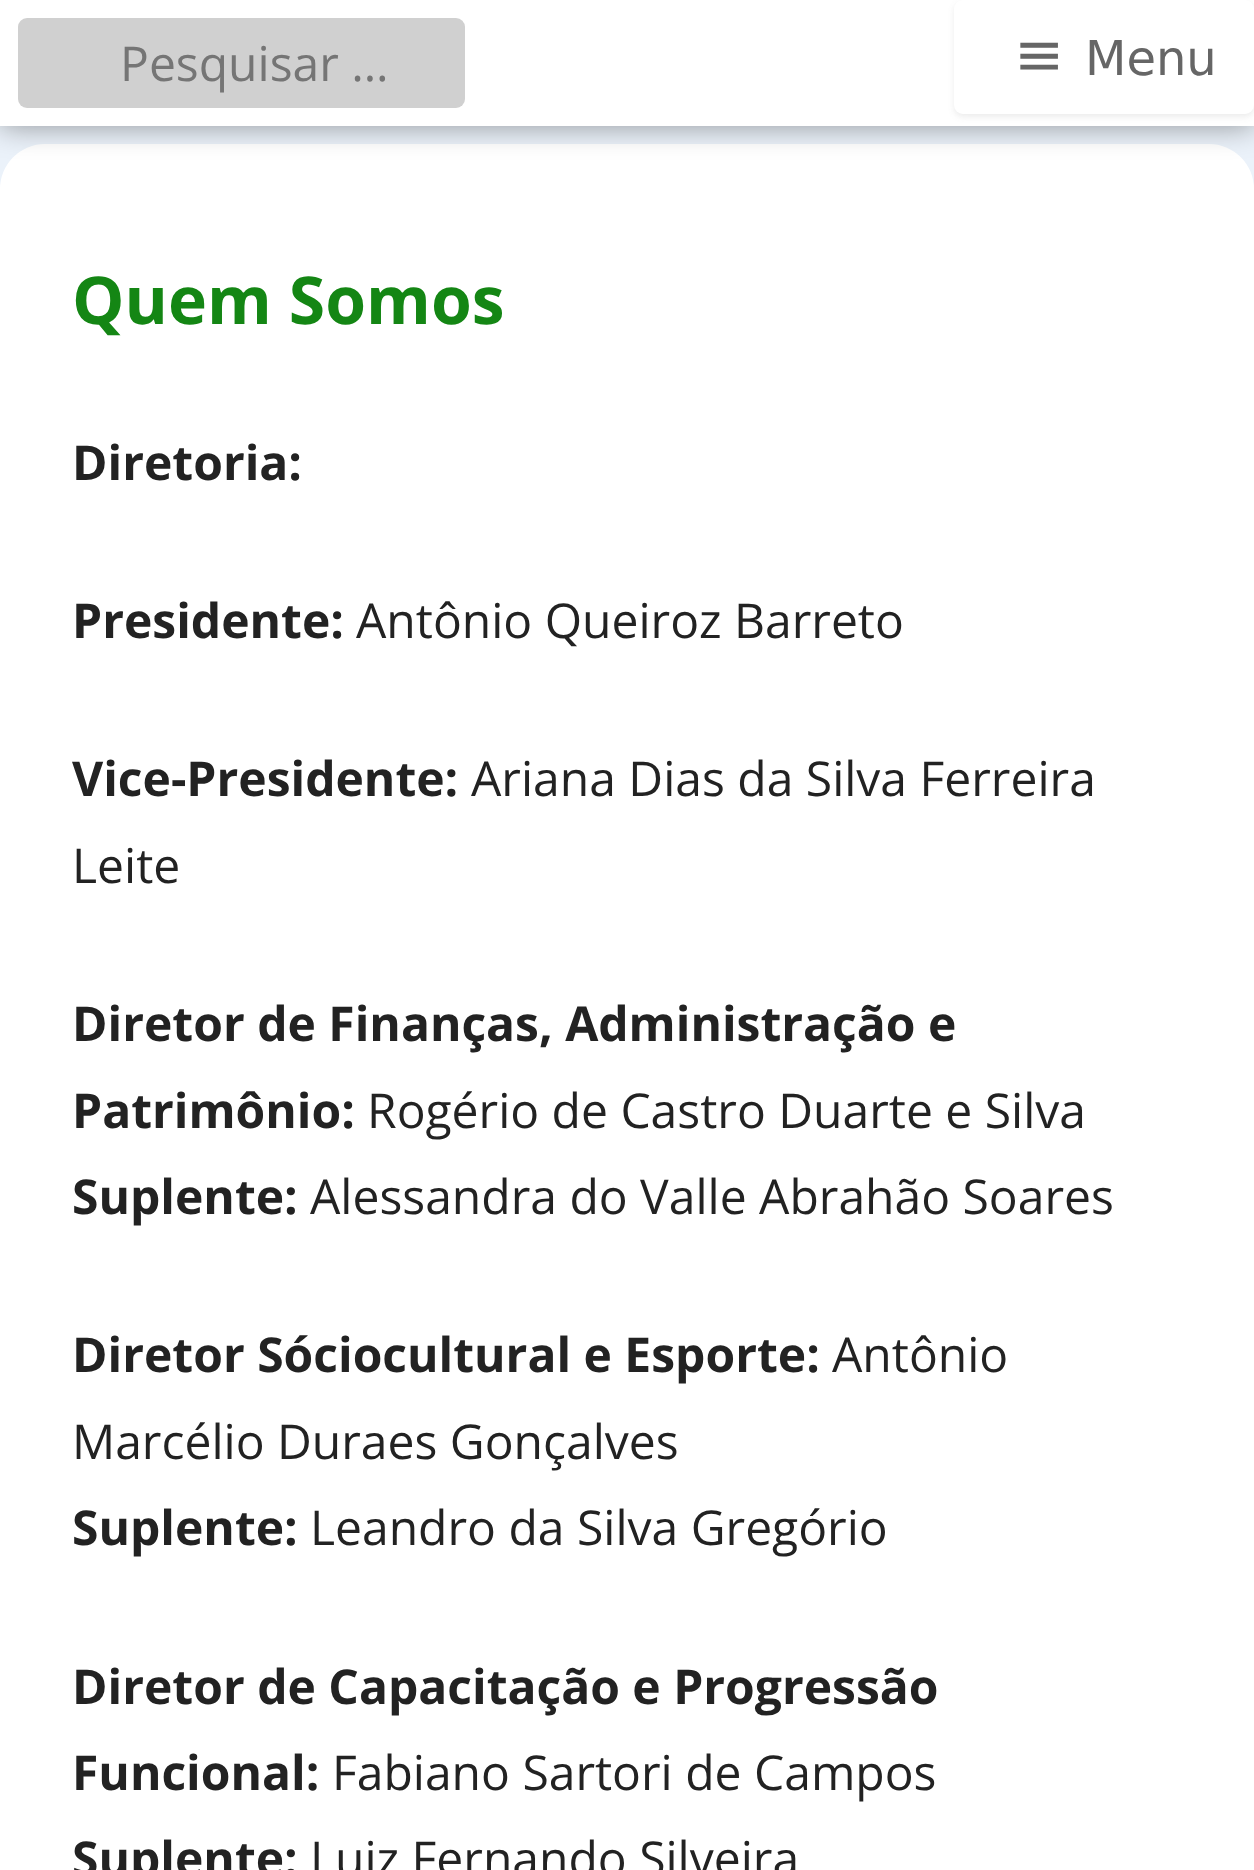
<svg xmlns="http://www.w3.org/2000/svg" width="1254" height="1870">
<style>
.a{font:48px Open Sans;fill:#757575}
.b{font:60px DejaVu Sans;fill:#666}
.c{font:48px DejaVu Sans;fill:#666}
.d{font:bold 66px Open Sans;fill:#148614}
.e{font:bold 48px Open Sans;fill:#222}
.f{font:48px Open Sans;fill:#222}
</style>
<rect width="100%" height="100%" fill="#ebf2fa"/>
<rect fill="#fff" y="144" width="1254" height="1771" rx="45"/>
<path fill="#00000066" filter="blur(15px)" d="M0 0h1254v126H0z"/>
<path fill="#fff" d="M0 0h1254v126H0z"/>
<rect fill="#d0d0d0" x="18" y="18" width="447" height="90" rx="9"/>
<rect fill="#4040401a" filter="blur(3px)" x="954" y="3" width="300" height="114" rx="9"/>
<rect fill="#fff" x="954" width="300" height="114" rx="9"/>
<text class="a" x="120" y="81">Pesquisar …</text>
<text class="b" x="1014" y="75">≡</text>
<text class="c" x="1085" y="75">Menu</text>
<text class="d" x="72" y="324">Quem Somos</text>
<text class="e" x="72" y="480">Diretoria:</text>
<text class="e" x="72" y="638">Presidente:</text>
<text class="f" x="356" y="638">Antônio Queiroz Barreto</text>
<text class="e" x="72" y="796">Vice-Presidente:</text>
<text class="f" x="471" y="796">Ariana Dias da Silva Ferreira</text>
<text class="f" x="72" y="883">Leite</text>
<text class="e" x="72" y="1041">Diretor de Finanças, Administração e</text>
<text class="e" x="72" y="1128">Patrimônio:</text>
<text class="f" x="367" y="1128">Rogério de Castro Duarte e Silva</text>
<text class="e" x="72" y="1214">Suplente:</text>
<text class="f" x="310" y="1214">Alessandra do Valle Abrahão Soares</text>
<text class="e" x="72" y="1372">Diretor Sóciocultural e Esporte:</text>
<text class="f" x="832" y="1372">Antônio</text>
<text class="f" x="72" y="1459">Marcélio Duraes Gonçalves</text>
<text class="e" x="72" y="1545">Suplente:</text>
<text class="f" x="310" y="1545">Leandro da Silva Gregório</text>
<text class="e" x="72" y="1704">Diretor de Capacitação e Progressão</text>
<text class="e" x="72" y="1790">Funcional:</text>
<text class="f" x="332" y="1790">Fabiano Sartori de Campos</text>
<text class="e" x="72" y="1876">Suplente:</text>
<text class="f" x="310" y="1876">Luiz Fernando Silveira</text>
</svg>
